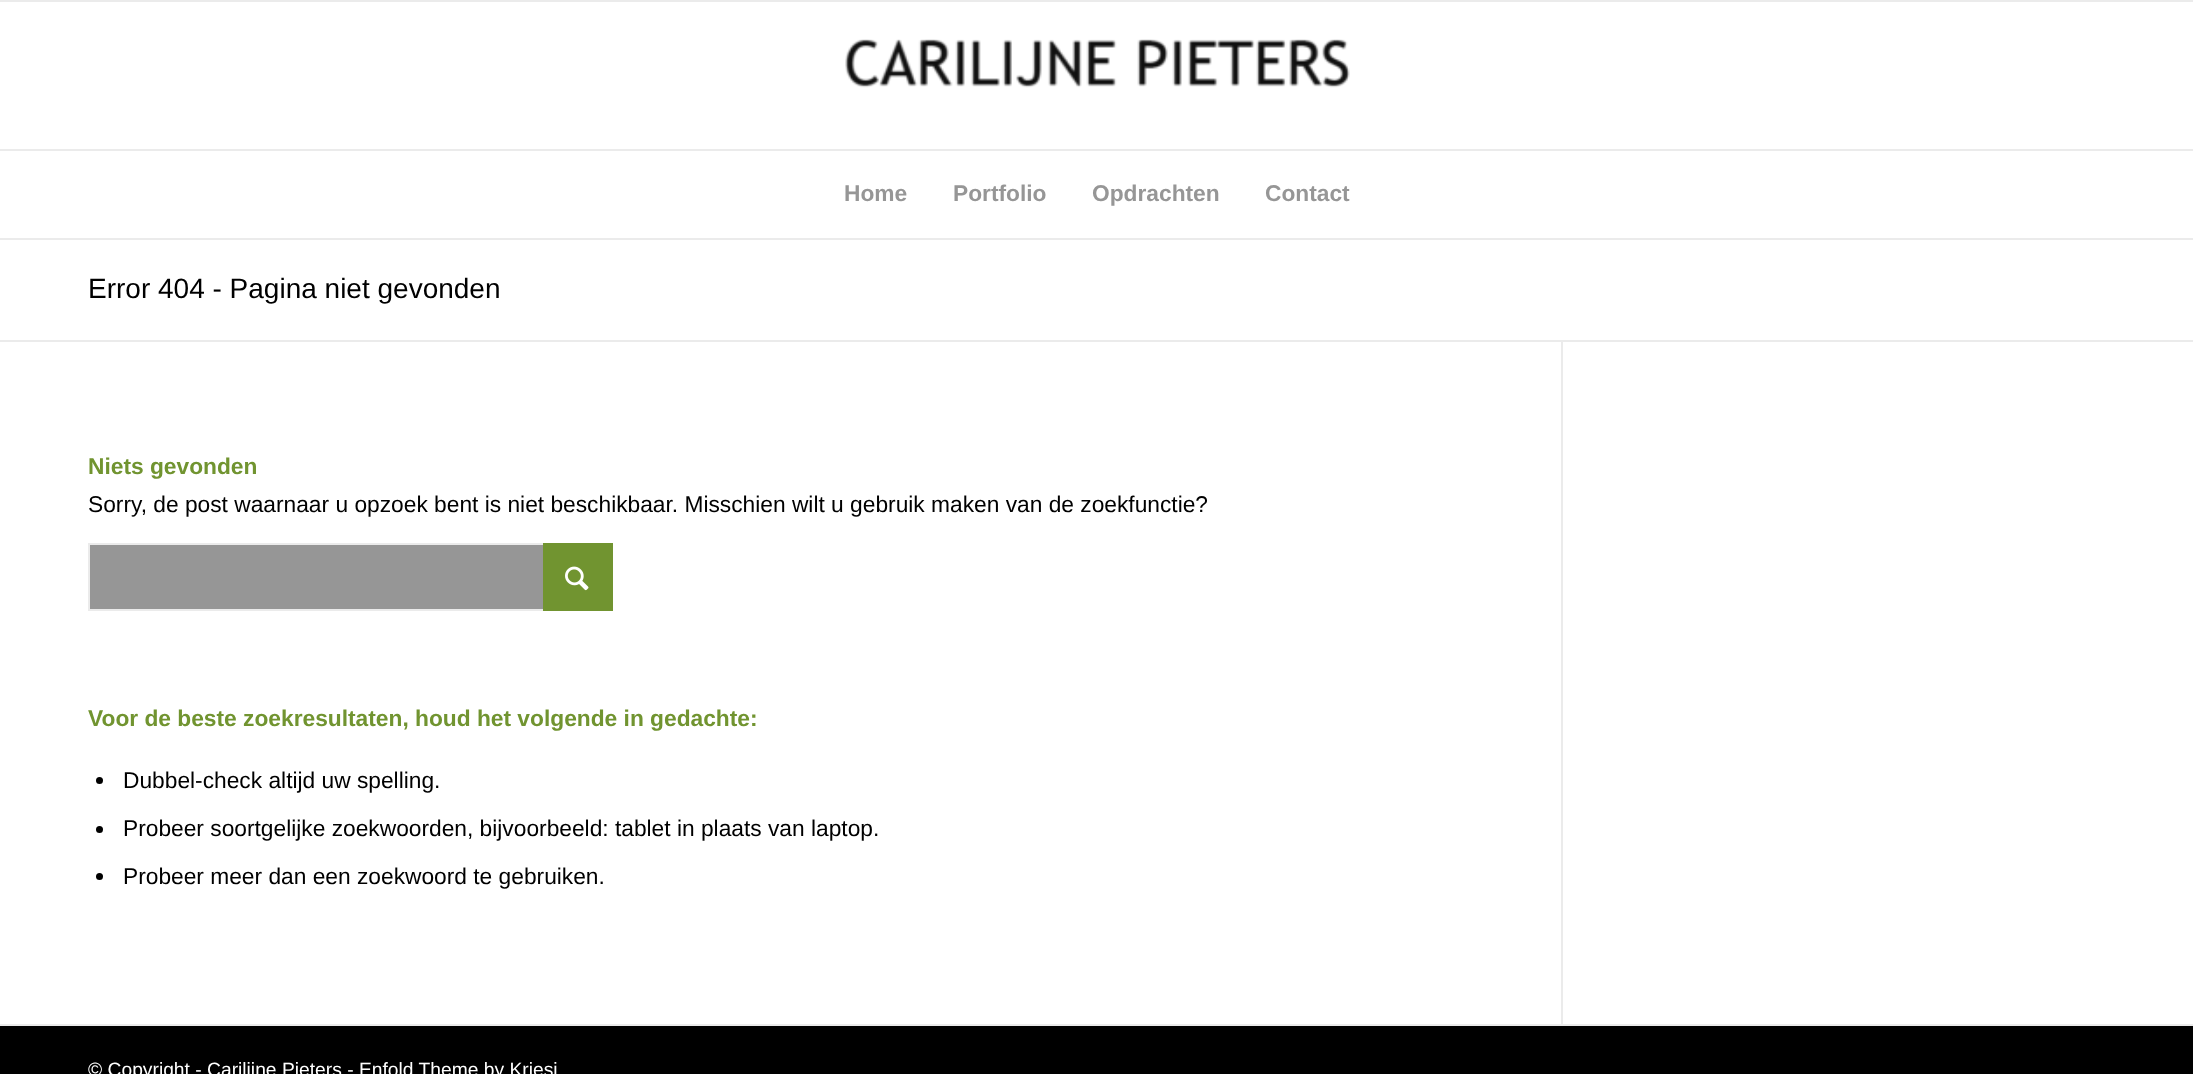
<svg xmlns="http://www.w3.org/2000/svg" width="2193" height="1074">
<style>
.a{font:bold 22.75px Liberation Sans;fill:#969696}
.b{font:28px Liberation Sans;fill:#000}
.c{font:bold 22.75px Liberation Sans;fill:#719430}
.d{font:22.75px Liberation Sans;fill:#000}
.e{font:19.25px Liberation Sans;fill:#fff}
</style>
<rect width="100%" height="100%" fill="#fff"/>
<path fill="#ebebeb" d="M0 0h2193v2H0z"/>
<path fill="#ebebeb" d="M0 238h2193v2H0z"/>
<image href="1.png" x="845" y="39" width="505" height="49"/>
<path fill="#ebebeb" d="M0 149h2193v2H0z"/>
<path fill="#ebebeb" d="M0 340h2193v2H0z"/>
<path fill="#ebebeb" d="M1561 341h2v683H1561z"/>
<path fill="#969696" d="M90 545h453v64H90z"/>
<path fill="none" stroke="#ebebeb" stroke-width="2" d="M89 544h523v66H89z"/>
<path fill="#719430" d="M543 543h70v68H543z"/>
<image href="2.png" x="565" y="566" width="24" height="25"/>
<circle fill="#000" cx="99.5" cy="780.5" r="3.5"/>
<circle fill="#000" cx="99.5" cy="829.5" r="3.5"/>
<circle fill="#000" cx="99.5" cy="876.5" r="3.5"/>
<path fill="#000" d="M0 1026h2193v48H0z"/>
<path fill="#ebebeb" d="M0 1024h2193v2H0z"/>
<text class="a" x="844" y="201">Home</text>
<text class="a" x="953" y="201">Portfolio</text>
<text class="a" x="1092" y="201">Opdrachten</text>
<text class="a" x="1265" y="201">Contact</text>
<text class="b" x="88" y="298">Error 404 - Pagina niet gevonden</text>
<text class="c" x="88" y="474">Niets gevonden</text>
<text class="d" x="88" y="512">Sorry, de post waarnaar u opzoek bent is niet beschikbaar. Misschien wilt u gebruik maken van de zoekfunctie?</text>
<text class="c" x="88" y="726">Voor de beste zoekresultaten, houd het volgende in gedachte:</text>
<text class="d" x="123" y="788">Dubbel-check altijd uw spelling.</text>
<text class="d" x="123" y="836">Probeer soortgelijke zoekwoorden, bijvoorbeeld: tablet in plaats van laptop.</text>
<text class="d" x="123" y="884">Probeer meer dan een zoekwoord te gebruiken.</text>
<text class="e" x="88" y="1076">© Copyright - Carilijne Pieters - Enfold Theme by Kriesi</text>
</svg>
